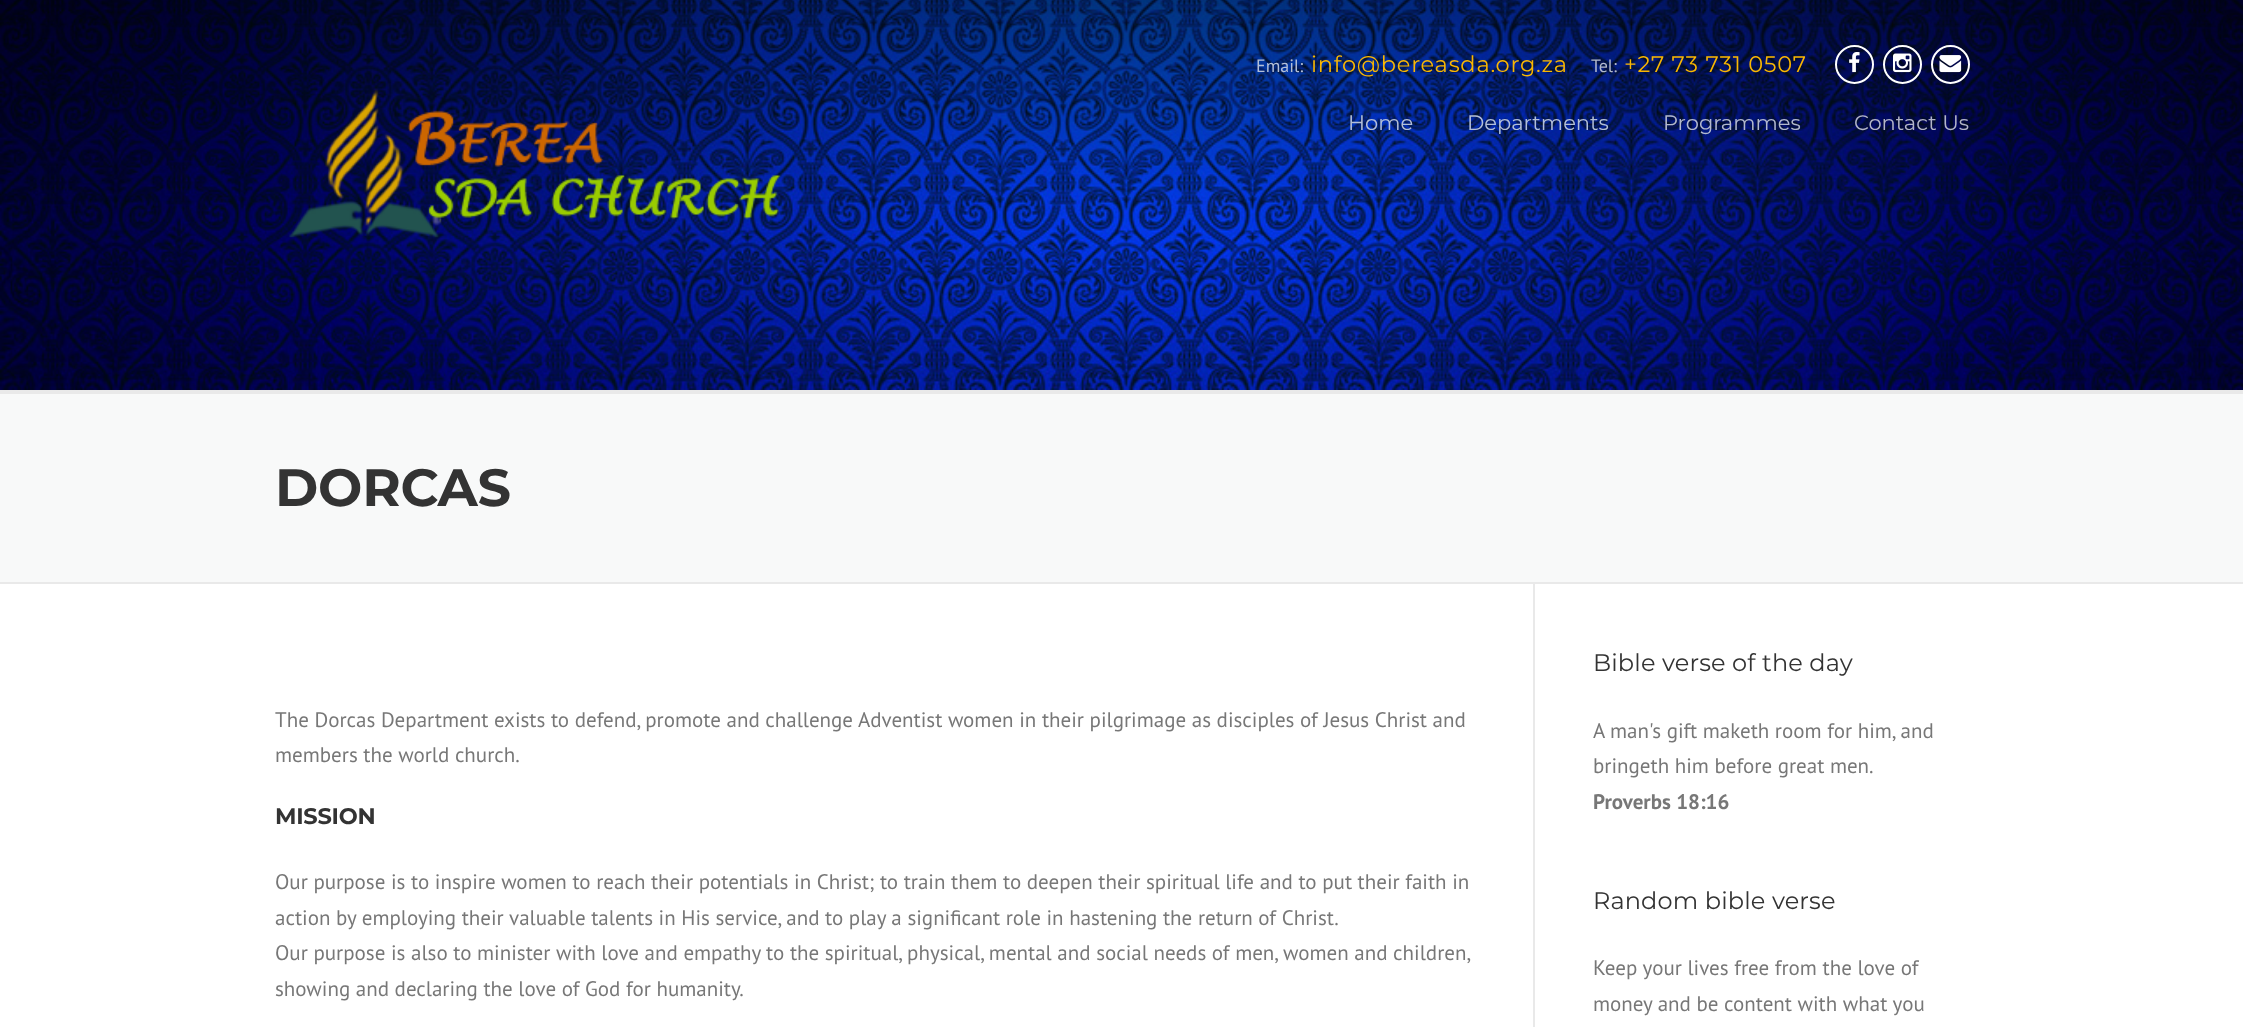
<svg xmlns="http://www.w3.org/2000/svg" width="2243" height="1027">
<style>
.a{font:18px PT Sans;fill:#b3bfd8}
.b{font:22.5px Montserrat;letter-spacing:0.75px;fill:#fab702}
.c{font:18px PT Sans;fill:#b3b9ce}
.d{font:21px Montserrat;fill:#b3bfd8}
.e{font:21px Montserrat;fill:#b3b9ce}
.f{font:21px Montserrat;fill:#b3b5c8}
.g{font:bold 52.5px Montserrat;letter-spacing:-0.25px;fill:#333}
.h{font:21px PT Sans;fill:#777}
.i{font:bold 22.5px Montserrat;letter-spacing:-0.25px;fill:#333}
.j{font:24px Montserrat;letter-spacing:0.15px;fill:#333}
.k{font:bold 21px PT Sans;fill:#777}
</style>
<rect width="100%" height="100%" fill="#fff"/>
<image href="5.png" x="0" y="0" width="2243" height="390"/>
<image href="1.png" x="289" y="88" width="492" height="150"/>
<circle fill="none" stroke="#fff" stroke-width="2" cx="1854.5" cy="64.5" r="18.5"/>
<image href="2.png" x="1849" y="52" width="11" height="21"/>
<circle fill="none" stroke="#fff" stroke-width="2" cx="1902.5" cy="64.5" r="18.5"/>
<image href="3.png" x="1893" y="53" width="19" height="20"/>
<circle fill="none" stroke="#fff" stroke-width="2" cx="1950.5" cy="64.5" r="18.5"/>
<image href="4.png" x="1939" y="55" width="23" height="18"/>
<path fill="#f8f9f9" d="M0 394h2243v188H0z"/>
<path fill="#e9e9e9" d="M0 390h2243v4H0z"/>
<path fill="#e9e9e9" d="M0 582h2243v2H0z"/>
<path fill="#e9e9e9" d="M1533 584h2v443H1533z"/>
<text class="a" x="1256" y="72">Email:</text>
<text class="b" x="1311" y="72">info@bereasda.org.za</text>
<text class="c" x="1591" y="72">Tel:</text>
<text class="b" x="1624" y="72">+27 73 731 0507</text>
<text class="d" x="1348" y="130">Home</text>
<text class="d" x="1467" y="130">Departments</text>
<text class="e" x="1663" y="130">Programmes</text>
<text class="f" x="1854" y="130">Contact Us</text>
<text class="g" x="275" y="506">DORCAS</text>
<text class="h" x="275" y="727">The Dorcas Department exists to defend, promote and challenge Adventist women in their pilgrimage as disciples of Jesus Christ and</text>
<text class="h" x="275" y="762">members the world church.</text>
<text class="i" x="275" y="824">MISSION</text>
<text class="h" x="275" y="889">Our purpose is to inspire women to reach their potentials in Christ; to train them to deepen their spiritual life and to put their faith in</text>
<text class="h" x="275" y="925">action by employing their valuable talents in His service, and to play a significant role in hastening the return of Christ.</text>
<text class="h" x="275" y="960">Our purpose is also to minister with love and empathy to the spiritual, physical, mental and social needs of men, women and children,</text>
<text class="h" x="275" y="996">showing and declaring the love of God for humanity.</text>
<text class="j" x="1593" y="671">Bible verse of the day</text>
<text class="h" x="1593" y="738">A man's gift maketh room for him, and</text>
<text class="h" x="1593" y="773">bringeth him before great men.</text>
<text class="k" x="1593" y="809">Proverbs 18:16</text>
<text class="j" x="1593" y="909">Random bible verse</text>
<text class="h" x="1593" y="975">Keep your lives free from the love of</text>
<text class="h" x="1593" y="1011">money and be content with what you</text>
</svg>
